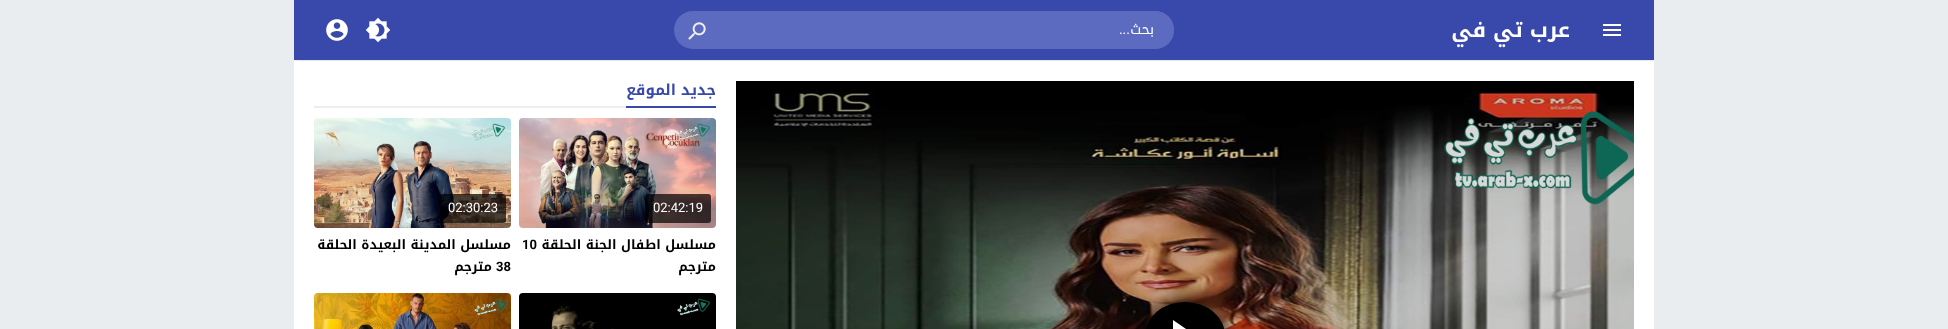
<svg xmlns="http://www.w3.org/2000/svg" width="1948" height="329">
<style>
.a{font:bold 21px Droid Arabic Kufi;direction:rtl;fill:#fff}
.b{font:14px Droid Arabic Kufi;direction:rtl;fill:#fff}
.c{font:14px Roboto;direction:rtl;fill:#fff}
.d{font:bold 15px Droid Arabic Kufi;direction:rtl;fill:#3949ab}
.e{font:13px Roboto;fill:#fff}
.f{font:bold 13px Droid Arabic Kufi;direction:rtl;fill:#000}
.g{font:bold 13px Roboto;fill:#000}
</style>
<rect width="100%" height="100%" fill="#e9edf0"/>
<path fill="#eee" d="M294 60h1360v1H294z"/>
<path fill="#fff" d="M294 61h1360v268H294z"/>
<path fill="#999" filter="blur(2.5px)" d="M299 7h1350v50H299z"/>
<path fill="#3949ab" d="M294 0h1360v60H294z"/>
<image href="1.png" x="1603" y="24" width="18" height="12"/>
<rect fill="#5c6bc0" x="674" y="11" width="500" height="38" rx="19"/>
<path fill="#5c6bc0" d="M724 11h431c10.5 0 19 8.5 19 19c0 10.5-8.5 19-19 19h-431z"/>
<image href="2.png" x="688" y="22" width="18" height="18"/>
<image href="3.png" x="365" y="17" width="26" height="26"/>
<image href="4.png" x="326" y="19" width="22" height="22"/>
<path fill="#000" d="M736 81h898v9H736z"/>
<image href="5.png" x="736" y="90" width="898" height="239"/>
<rect fill="#000" filter="blur(10px)" x="1145" y="302" width="80" height="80" rx="40"/>
<rect fill="#000" x="1145" y="302" width="80" height="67" rx="40"/>
<path fill="#fff" d="M1173 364v-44l32 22z"/>
<path fill="#eee" d="M314 106h312v2H314z"/>
<path fill="#3949ab" d="M626 106h90v2H626z"/>
<image href="6.png" x="519" y="118" width="197" height="110"/>
<rect fill="#000000b3" x="645" y="194" width="66" height="29" rx="3"/>
<image href="7.png" x="314" y="118" width="197" height="110"/>
<rect fill="#000000b3" x="440" y="194" width="66" height="29" rx="3"/>
<image href="8.png" x="519" y="293" width="197" height="36"/>
<image href="9.png" x="314" y="293" width="197" height="36"/>
<text class="a" x="1570" y="37">عرب تي في</text>
<text class="b" x="1154" y="34">بحث</text>
<text class="c" x="1130" y="34">...</text>
<text class="d" x="716" y="95">جديد الموقع</text>
<text class="e" x="653" y="212">02:42:19</text>
<text class="f" x="716" y="249">مسلسل اطفال الجنة الحلقة</text>
<text class="g" x="522" y="249">10</text>
<text class="f" x="716" y="271">مترجم</text>
<text class="e" x="448" y="212">02:30:23</text>
<text class="f" x="511" y="249">مسلسل المدينة البعيدة الحلقة</text>
<text class="g" x="496" y="271">38</text>
<text class="f" x="492" y="271">مترجم</text>
</svg>
